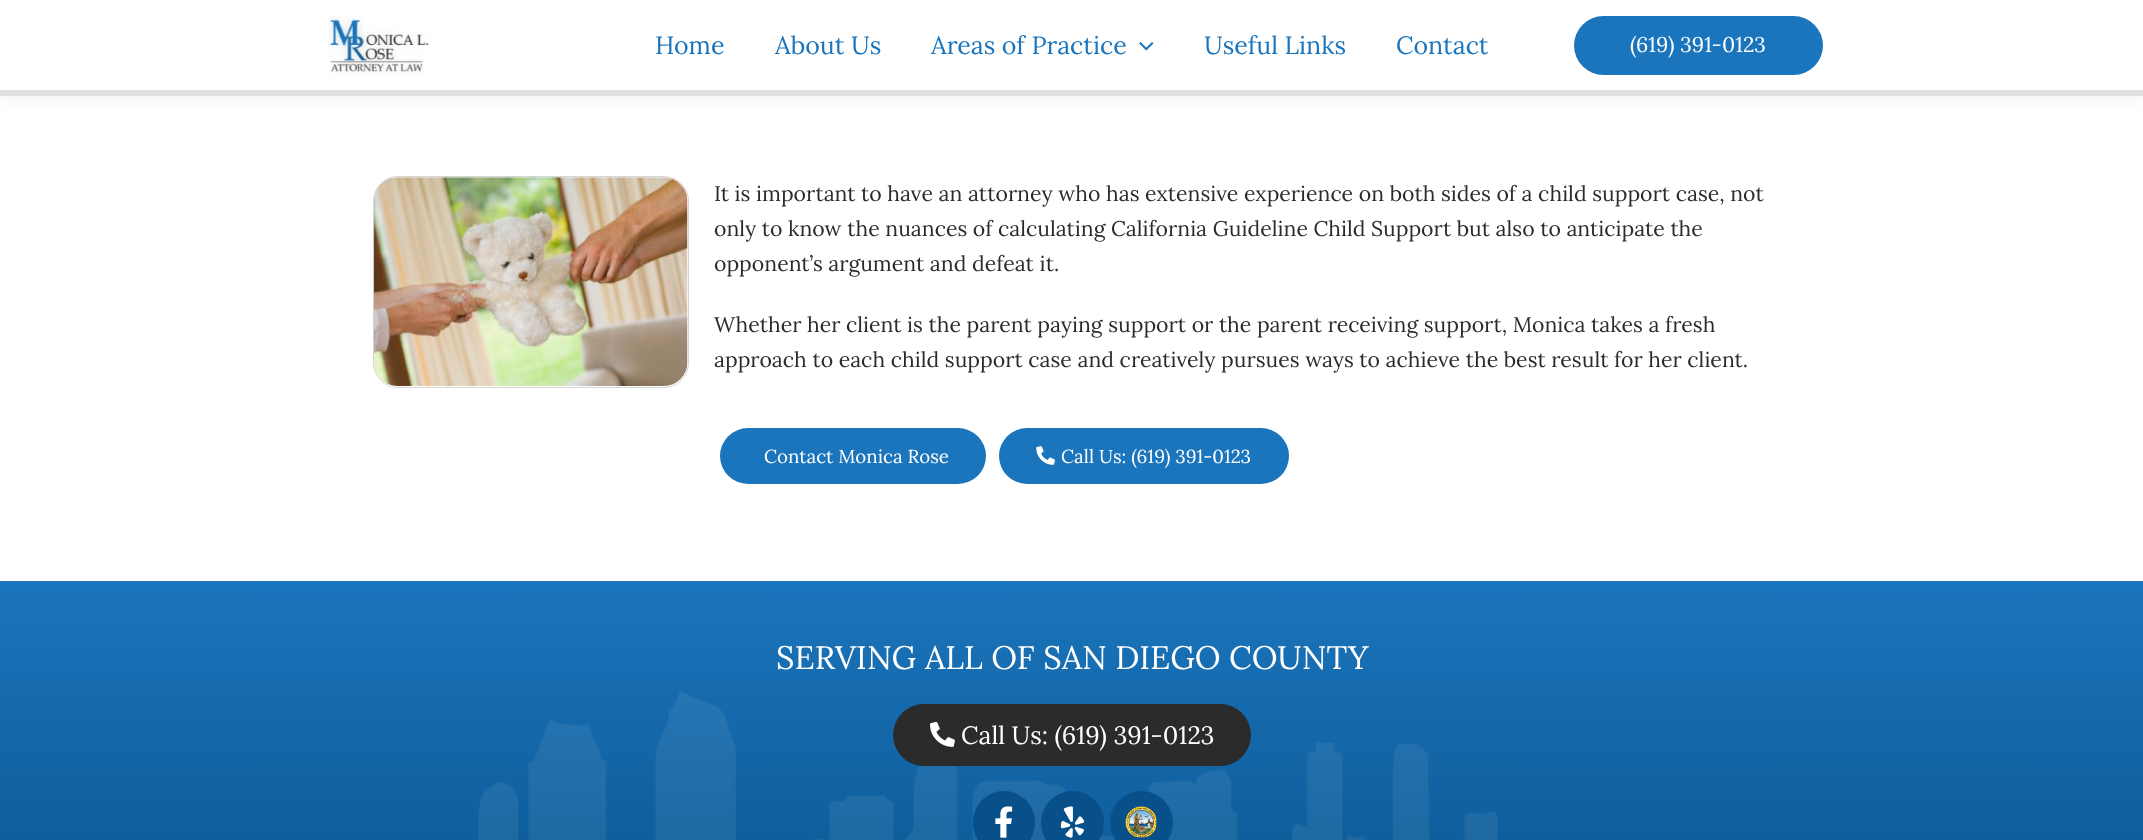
<svg xmlns="http://www.w3.org/2000/svg" width="2143" height="840">
<style>
.a{font:25px Lora;fill:#1b75bc}
.b{font:21.25px Lora;fill:#fff}
.c{font:21.25px Lora;fill:#2b2b2b}
.d{font:18.75px Lora;fill:#fff}
.e{font:32.5px Lora;fill:#fff}
.f{font:25px Lora;fill:#fff}
</style>
<defs>
<linearGradient id="g1" gradientUnits="userSpaceOnUse" x1="1072" y1="581" x2="1072" y2="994"><stop offset="0" stop-color="#1b75bc"/><stop offset="1" stop-color="#085089"/></linearGradient>
</defs>
<rect width="100%" height="100%" fill="#fff"/>
<path fill="#24324212" filter="blur(6px)" d="M0 3h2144v96H0z"/>
<path fill="#fff" d="M0 0h2143v90H0z"/>
<path fill="#e0e0e0" d="M0 90h2143v6H0z"/>
<image href="1.png" x="328" y="15" width="101" height="60"/>
<image href="2.png" x="1139" y="42" width="15" height="9"/>
<rect fill="#1b75bc" x="1574" y="16" width="249" height="59" rx="29.5"/>
<rect fill="none" stroke="#d4d4d4" x="373.5" y="176.5" width="315" height="211" rx="24.5"/>
<image href="3.png" x="373" y="177" width="315" height="209"/>
<rect fill="#1b75bc" x="720" y="428" width="266" height="56" rx="28"/>
<rect fill="#1b75bc" x="999" y="428" width="290" height="56" rx="28"/>
<image href="4.png" x="1036" y="446" width="19" height="19"/>
<path fill="url(#g1)" d="M0 581h2143v259H0z"/>
<image href="9.png" x="478" y="691" width="1020" height="149"/>
<rect fill="#2b2b2b" x="893" y="704" width="358" height="62" rx="31"/>
<image href="5.png" x="930" y="721" width="25" height="26"/>
<rect fill="#085089" x="973" y="791" width="62" height="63" rx="31"/>
<image href="6.png" x="995" y="806" width="18" height="32"/>
<circle fill="#085089" cx="1072.5" cy="822.5" r="31.5"/>
<image href="7.png" x="1060" y="806" width="25" height="32"/>
<circle fill="#085089" cx="1141.5" cy="822.5" r="31.5"/>
<image href="8.png" x="1125" y="806" width="32" height="32"/>
<text class="a" x="655" y="54">Home</text>
<text class="a" x="775" y="54">About Us</text>
<text class="a" x="931" y="54">Areas of Practice</text>
<text class="a" x="1204" y="54">Useful Links</text>
<text class="a" x="1396" y="54">Contact</text>
<text class="b" x="1630" y="52">(619) 391-0123</text>
<text class="c" x="714" y="201">It is important to have an attorney who has extensive experience on both sides of a child support case, not</text>
<text class="c" x="714" y="236">only to know the nuances of calculating California Guideline Child Support but also to anticipate the</text>
<text class="c" x="714" y="271">opponent’s argument and defeat it.</text>
<text class="c" x="714" y="332">Whether her client is the parent paying support or the parent receiving support, Monica takes a fresh</text>
<text class="c" x="714" y="367">approach to each child support case and creatively pursues ways to achieve the best result for her client.</text>
<text class="d" x="764" y="463">Contact Monica Rose</text>
<text class="d" x="1061" y="463">Call Us: (619) 391-0123</text>
<text class="e" x="776" y="669">SERVING ALL OF SAN DIEGO COUNTY</text>
<text class="f" x="961" y="744">Call Us: (619) 391-0123</text>
</svg>
